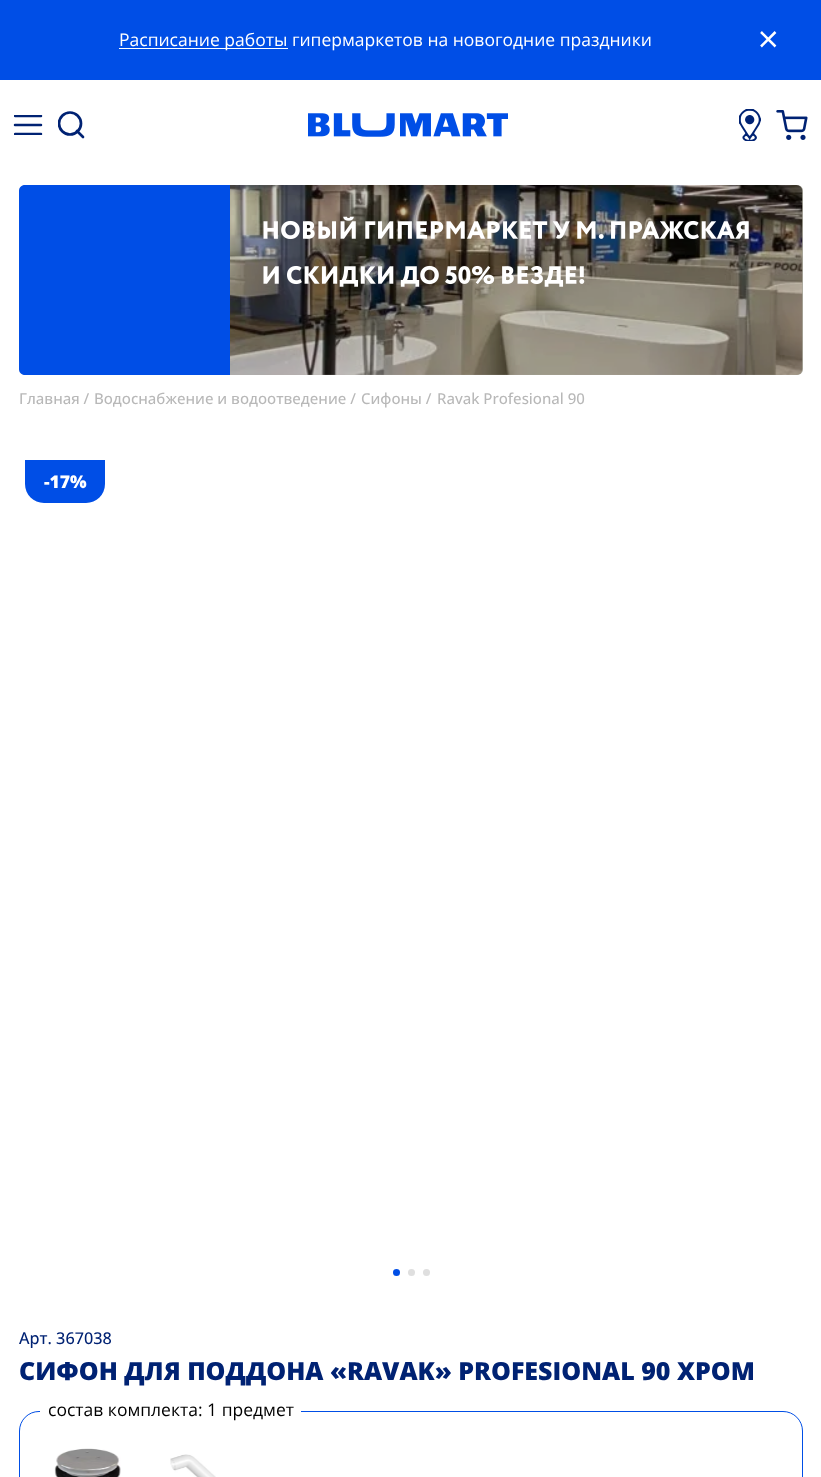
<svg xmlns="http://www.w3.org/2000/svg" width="821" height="1477">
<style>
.a{font:17.5px Open Sans;fill:#fff}
.b{font:500 15px Open Sans;fill:#b8b8b8}
.c{font:800 17.5px Open Sans;fill:#fff}
.d{font:500 16.25px Open Sans;fill:#002273}
.e{font:800 25px Open Sans;fill:#002273}
.f{font:17.5px Open Sans;fill:#000}
</style>
<defs>
<clipPath id="clip1"><path d="M14 115h29v20H14z"/></clipPath>
<clipPath id="clip2"><path d="M58 111h27v28H58z"/></clipPath>
</defs>
<rect width="100%" height="100%" fill="#fff"/>
<path fill="#004ee6" d="M0 0h821v80H0z"/>
<path fill="#fff" d="M119 48h169v1H119z"/>
<path fill="none" stroke="#fff" stroke-width="2.5" d="M761 46.5l14.5-14.5m-14.5 0l14.5 14.5"/>
<g clip-path="url(#clip1)">
<path fill="none" stroke="#002273" stroke-width="2.5" stroke-linecap="round" d="M15 116h26"/>
</g>
<path fill="none" stroke="#002273" stroke-width="2.5" stroke-linecap="round" d="M15 125h26"/>
<g clip-path="url(#clip1)">
<path fill="none" stroke="#002273" stroke-width="2.5" stroke-linecap="round" d="M15 134h26"/>
</g>
<g clip-path="url(#clip2)">
<circle fill="none" stroke="#002273" stroke-width="2.7" cx="70" cy="123.5" r="11"/>
</g>
<path fill="none" stroke="#002273" stroke-width="2.7" stroke-linecap="round" stroke-linejoin="round" d="M83 137l-6-6"/>
<image href="1.png" x="308" y="113" width="200" height="24"/>
<image href="2.png" x="739" y="109" width="22" height="32"/>
<image href="3.png" x="776" y="110" width="32" height="30"/>
<rect fill="#d7d5c7" x="19" y="185" width="784" height="190" rx="6"/>
<path fill="#004ee6" d="M25 185h205v190h-205c-3.5 0-6-2.5-6-6v-178c0-3.5 2.5-6 6-6z"/>
<image href="4.png" x="230" y="185" width="573" height="190"/>
<path fill="#00000033" d="M230 185h567c3.5 0 6 2.5 6 6v178c0 3.5-2.5 6-6 6h-567z"/>
<image href="5.png" x="263" y="216" width="486" height="24"/>
<image href="6.png" x="263" y="265" width="322" height="22"/>
<path fill="#004ee6" d="M25 460h80v24c0 10.5-8.5 19-19 19h-42c-10.5 0-19-8.5-19-19z"/>
<circle fill="#004ee6" cx="396.5" cy="1272.5" r="3.5"/>
<circle fill="#dfdfdf" cx="411.5" cy="1272.5" r="3.5"/>
<circle fill="#dfdfdf" cx="426.5" cy="1272.5" r="3.5"/>
<rect fill="none" stroke="#004ee6" x="19.5" y="1411.5" width="783" height="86" rx="19.5"/>
<path fill="#fff" d="M40 1411h261v1H40z"/>
<image href="7.png" x="54" y="1448" width="67" height="29"/>
<image href="8.png" x="170" y="1454" width="46" height="23"/>
<text class="a" x="119" y="46">Расписание работы гипермаркетов на новогодние праздники</text>
<text class="b" x="19" y="404">Главная /</text>
<text class="b" x="94" y="404">Водоснабжение и водоотведение /</text>
<text class="b" x="361" y="404">Сифоны /</text>
<text class="b" x="437" y="404">Ravak Profesional 90</text>
<text class="c" x="44" y="488">-17%</text>
<text class="d" x="19" y="1344">Арт. 367038</text>
<text class="e" x="19" y="1380">СИФОН ДЛЯ ПОДДОНА «RAVAK» PROFESIONAL 90 ХРОМ</text>
<text class="f" x="48" y="1416">состав комплекта: 1 предмет</text>
</svg>
